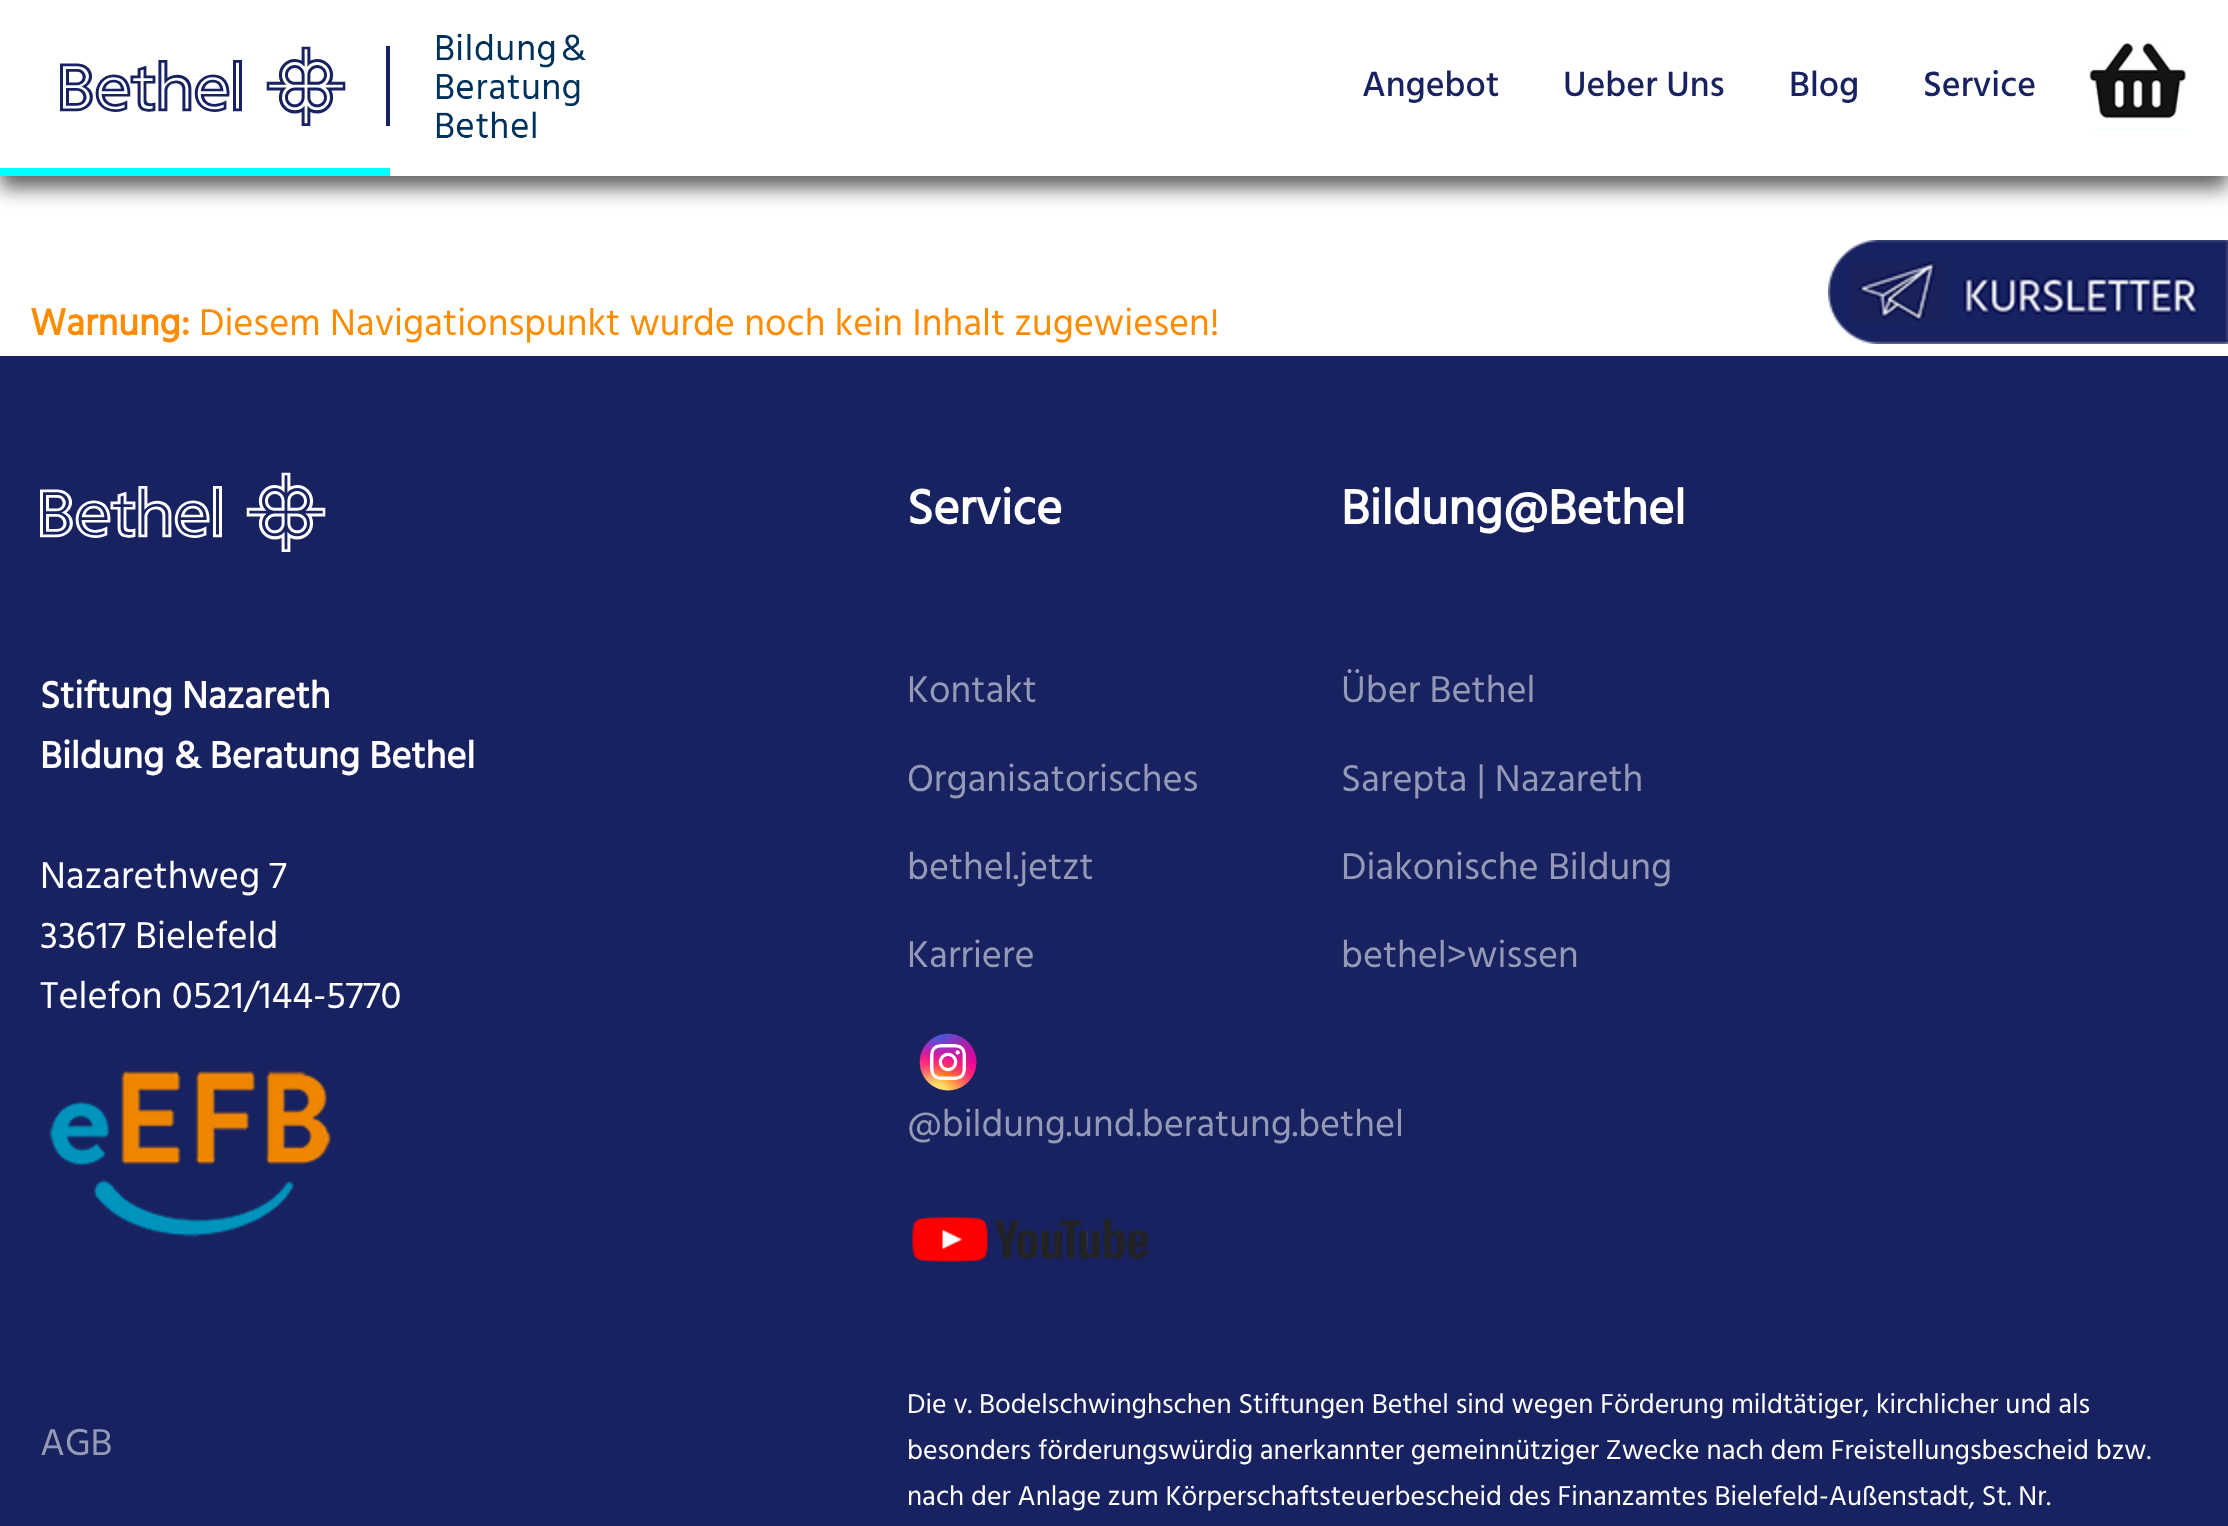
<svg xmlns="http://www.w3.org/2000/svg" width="2228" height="1526">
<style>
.a{font:500 36px Hind;fill:#182260}
.b{font:bold 38.4px Hind;fill:#ff8c00}
.c{font:38.4px Hind;fill:#ff8c00}
.d{font:bold 38.4px Hind;fill:#fff}
.e{font:38.4px Hind;fill:#fff}
.f{font:bold 50px Hind;fill:#fff}
.g{font:38.4px Hind;fill:#9499b5}
.h{font:28px Hind;fill:#fff}
</style>
<defs>
<clipPath id="clip1"><path d="M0 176h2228v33H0z"/></clipPath>
</defs>
<rect width="100%" height="100%" fill="#fff"/>
<g clip-path="url(#clip1)">
<path fill="#606060" filter="blur(10px)" d="M0 12h2228v176H0z"/>
</g>
<image href="1.png" x="60" y="46" width="286" height="80"/>
<path fill="#182260" d="M386 46h4v80H386z"/>
<path fill="#0ff" d="M0 168h390v8H0z"/>
<image href="2.png" x="436" y="33" width="150" height="105"/>
<image href="3.png" x="2089" y="42" width="97" height="88"/>
<path fill="#182260" d="M0 356h2228v1170H0z"/>
<image href="4.png" x="40" y="472" width="286" height="80"/>
<image href="5.png" x="49" y="1071" width="282" height="167"/>
<image href="6.png" x="919" y="1033" width="58" height="58"/>
<image href="7.png" x="912" y="1216" width="236" height="46"/>
<image href="8.png" x="1828" y="240" width="400" height="104"/>
<text class="a" x="1362" y="96">Angebot</text>
<text class="a" x="1563" y="96">Ueber Uns</text>
<text class="a" x="1789" y="96">Blog</text>
<text class="a" x="1923" y="96">Service</text>
<text class="b" x="30" y="335">Warnung:</text>
<text class="c" x="199" y="335">Diesem Navigationspunkt wurde noch kein Inhalt zugewiesen!</text>
<text class="d" x="40" y="708">Stiftung Nazareth</text>
<text class="d" x="40" y="768">Bildung &amp; Beratung Bethel</text>
<text class="e" x="40" y="888">Nazarethweg 7</text>
<text class="e" x="40" y="948">33617 Bielefeld</text>
<text class="e" x="40" y="1008">Telefon 0521/144-5770</text>
<text class="f" x="907" y="524">Service</text>
<text class="g" x="907" y="702">Kontakt</text>
<text class="g" x="907" y="791">Organisatorisches</text>
<text class="g" x="907" y="879">bethel.jetzt</text>
<text class="g" x="907" y="967">Karriere</text>
<text class="g" x="907" y="1136">@bildung.und.beratung.bethel</text>
<text class="f" x="1341" y="524">Bildung@Bethel</text>
<text class="g" x="1341" y="702">Über Bethel</text>
<text class="g" x="1341" y="791">Sarepta | Nazareth</text>
<text class="g" x="1341" y="879">Diakonische Bildung</text>
<text class="g" x="1341" y="967">bethel&gt;wissen</text>
<text class="g" x="40" y="1455">AGB</text>
<text class="h" x="907" y="1413">Die v. Bodelschwinghschen Stiftungen Bethel sind wegen Förderung mildtätiger, kirchlicher und als</text>
<text class="h" x="907" y="1459">besonders förderungswürdig anerkannter gemeinnütziger Zwecke nach dem Freistellungsbescheid bzw.</text>
<text class="h" x="907" y="1505">nach der Anlage zum Körperschaftsteuerbescheid des Finanzamtes Bielefeld-Außenstadt, St. Nr.</text>
</svg>
